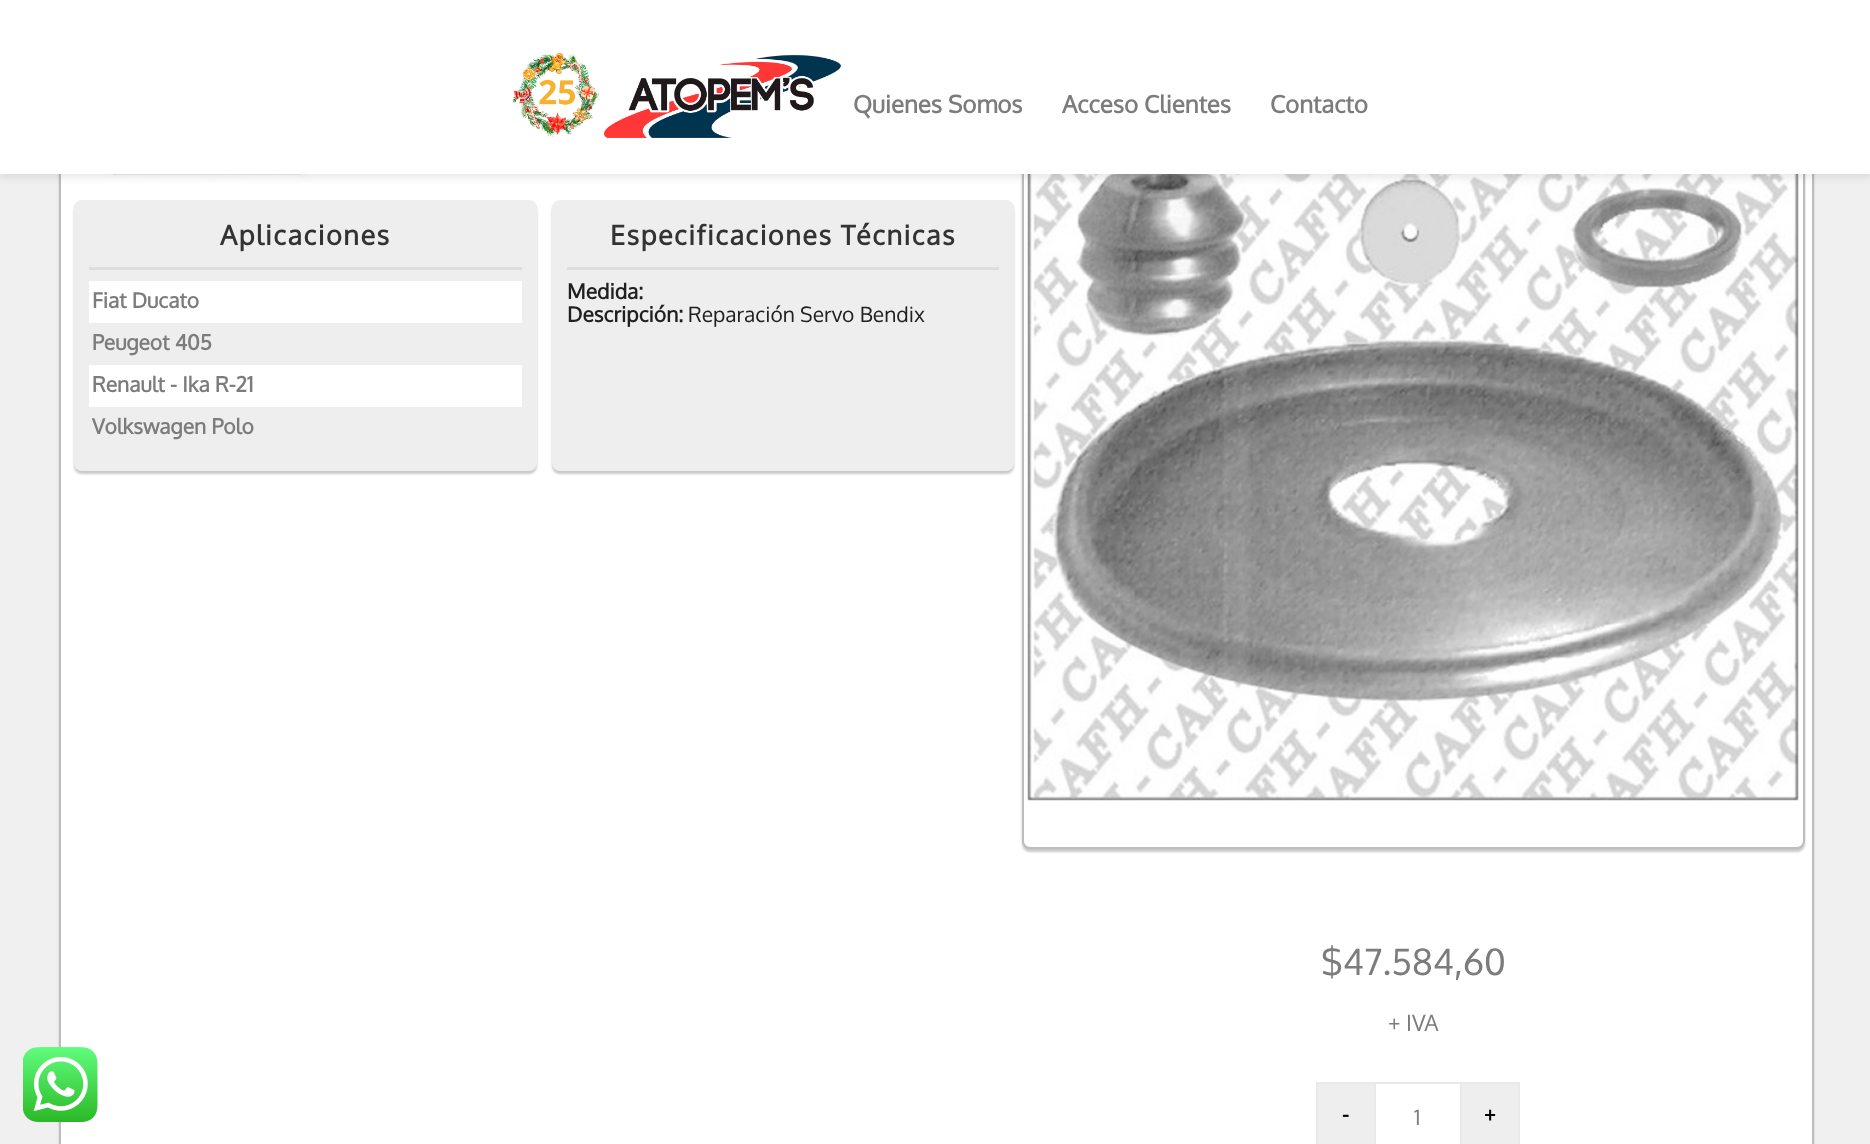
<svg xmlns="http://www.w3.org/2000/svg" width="1870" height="1144">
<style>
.a{font:bold 24px Oxygen;fill:#7c7c7c}
.b{font:bold 27px Oxygen;letter-spacing:1.5px;fill:#333}
.c{font:bold 21px Oxygen;fill:#7c7c7c}
.d{font:bold 21px Oxygen;fill:#202020}
.e{font:21px Oxygen;fill:#202020}
.f{font:36px Oxygen;fill:#7c7c7c}
.g{font:22.5px Oxygen;fill:#7c7c7c}
.h{font:bold 21px Oxygen;fill:#000}
.i{font:21px Oxygen;fill:#7c7c7c}
</style>
<rect width="100%" height="100%" fill="#f0f0f0"/>
<rect fill="#c9c9c9" filter="blur(1px)" x="59" y="-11" width="1755" height="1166" rx="8"/>
<path fill="#fff" d="M61 174h1751v970H61z"/>
<path fill="none" stroke="#bdbdbd" stroke-width="2" d="M60 -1h1753v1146H60z"/>
<image href="1.png" x="23" y="1047" width="75" height="75"/>
<image href="3.png" x="106" y="174" width="202" height="4"/>
<rect fill="#c9c9c9" filter="blur(1px)" x="1022" y="68" width="783" height="784" rx="8"/>
<rect fill="#fff" stroke="#bdbdbd" stroke-width="2" x="1023" y="66" width="781" height="782" rx="7"/>
<image href="4.png" x="1027" y="174" width="772" height="627"/>
<path fill="#0000001a" filter="blur(4px)" d="M0 3h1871v174H0z"/>
<path fill="#fff" d="M0 0h1870v174H0z"/>
<image href="2.png" x="512" y="52" width="329" height="86"/>
<rect fill="#c9c9c9" filter="blur(1px)" x="74" y="203" width="463" height="271" rx="8"/>
<rect fill="#eee" x="74" y="200" width="463" height="271" rx="8"/>
<path fill="#ddd" d="M89 267h433v3H89z"/>
<path fill="#fff" d="M89 281h433v42H89z"/>
<path fill="#fff" d="M89 365h433v42H89z"/>
<rect fill="#c9c9c9" filter="blur(1px)" x="552" y="203" width="462" height="271" rx="8"/>
<rect fill="#eee" x="552" y="200" width="462" height="271" rx="8"/>
<path fill="#ddd" d="M567 267h432v3H567z"/>
<path fill="#eee" stroke="#e9e9e9" stroke-width="2" d="M1317 1083h58v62H1317z"/>
<path fill="#e9e9e9" d="M1376 1082h84v2H1376z"/>
<path fill="#eee" stroke="#e9e9e9" stroke-width="2" d="M1461 1083h58v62H1461z"/>
<text class="a" x="853" y="113">Quienes Somos</text>
<text class="a" x="1062" y="113">Acceso Clientes</text>
<text class="a" x="1270" y="113">Contacto</text>
<text class="b" x="220" y="245">Aplicaciones</text>
<text class="c" x="92" y="308">Fiat Ducato</text>
<text class="c" x="92" y="350">Peugeot 405</text>
<text class="c" x="92" y="392">Renault - Ika R-21</text>
<text class="c" x="92" y="434">Volkswagen Polo</text>
<text class="b" x="610" y="245">Especificaciones Técnicas</text>
<text class="d" x="567" y="299">Medida:</text>
<text class="d" x="567" y="322">Descripción:</text>
<text class="e" x="688" y="322">Reparación Servo Bendix</text>
<text class="f" x="1321" y="975">$47.584,60</text>
<text class="g" x="1388" y="1031">+ IVA</text>
<text class="h" x="1342" y="1122">-</text>
<text class="i" x="1414" y="1125">1</text>
<text class="h" x="1484" y="1122">+</text>
</svg>
